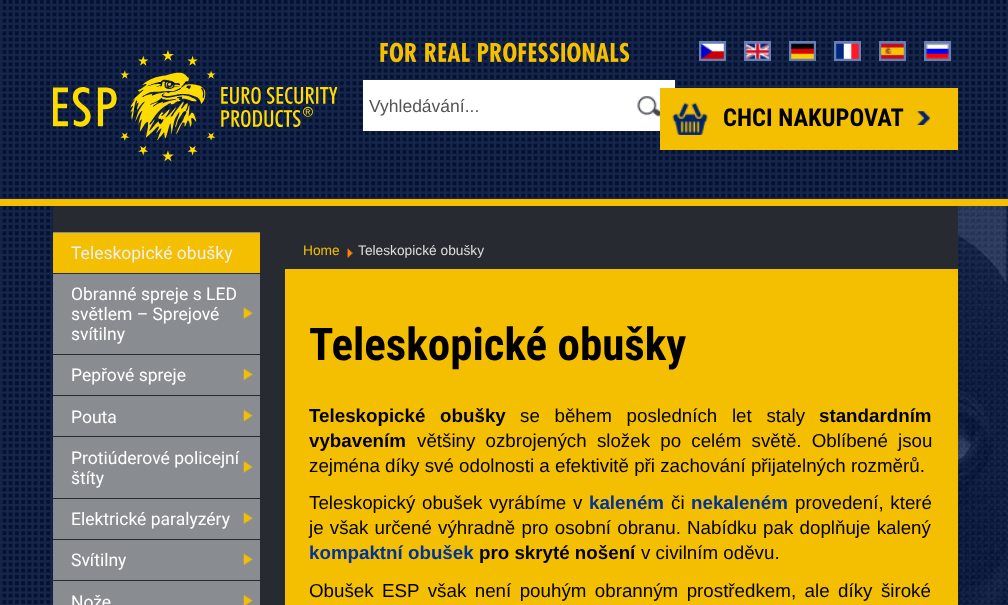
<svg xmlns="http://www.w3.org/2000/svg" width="1008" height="605">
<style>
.a{font:17.5px Liberation Sans;fill:#555}
.b{font:bold 24.5px Roboto Condensed;fill:#000}
.c{font:17.5px Roboto;fill:#efefef}
.d{font:17.5px Roboto;fill:#fff}
.e{font:13.75px Liberation Sans;fill:#f4bf01}
.f{font:13.75px Liberation Sans;fill:#ddd}
.g{font:bold 45px Roboto Condensed;fill:#000}
.h{font:bold 18.75px Liberation Sans;fill:#000}
.i{font:18.75px Liberation Sans;fill:#000}
.j{font:bold 18.75px Liberation Sans;fill:#039}
</style>
<rect width="100%" height="100%" fill="#031133"/>
<image href="1.png" x="0" y="0" width="1008" height="605"/>
<image href="2.png" x="958" y="206" width="50" height="399"/>
<path fill="#f4bf01" d="M0 199h1008v7H0z"/>
<image href="3.png" x="53" y="50" width="285" height="112"/>
<image href="4.png" x="380" y="42" width="250" height="21"/>
<path fill="#fff" d="M363 80h312v51H363z"/>
<image href="5.png" x="637" y="96" width="23" height="21"/>
<path fill="none" stroke="#687fb3" stroke-width="3" d="M700.5 42.5h24v17H700.5z"/>
<path fill="none" stroke="#687fb3" stroke-width="3" d="M745.5 42.5h24v17H745.5z"/>
<path fill="none" stroke="#687fb3" stroke-width="3" d="M790.5 42.5h24v17H790.5z"/>
<path fill="none" stroke="#687fb3" stroke-width="3" d="M835.5 42.5h24v17H835.5z"/>
<path fill="none" stroke="#687fb3" stroke-width="3" d="M880.5 42.5h24v17H880.5z"/>
<path fill="none" stroke="#687fb3" stroke-width="3" d="M925.5 42.5h24v17H925.5z"/>
<image href="6.png" x="701" y="43" width="23" height="16"/>
<image href="7.png" x="746" y="43" width="23" height="16"/>
<image href="8.png" x="791" y="43" width="23" height="16"/>
<image href="9.png" x="836" y="43" width="23" height="16"/>
<image href="10.png" x="881" y="43" width="23" height="16"/>
<image href="11.png" x="926" y="43" width="23" height="16"/>
<path fill="#f4bf01" d="M660 88h298v62H660z"/>
<image href="12.png" x="672" y="102" width="36" height="33"/>
<image href="13.png" x="917" y="111" width="13" height="14"/>
<path fill="#272b31" d="M53 206h905v399H53z"/>
<path fill="#898d91" d="M53 232h207v373H53z"/>
<path fill="#f4bf01" d="M53 233h207v40H53z"/>
<path fill="#272b31" d="M53 273h207v1H53z"/>
<path fill="#272b31" d="M53 354h207v1H53z"/>
<image href="14.png" x="243" y="307" width="10" height="12"/>
<path fill="#272b31" d="M53 395h207v1H53z"/>
<image href="15.png" x="243" y="368" width="10" height="13"/>
<path fill="#272b31" d="M53 436h207v1H53z"/>
<image href="16.png" x="243" y="410" width="10" height="12"/>
<path fill="#272b31" d="M53 498h207v1H53z"/>
<image href="17.png" x="243" y="461" width="10" height="12"/>
<path fill="#272b31" d="M53 539h207v1H53z"/>
<image href="18.png" x="243" y="512" width="10" height="12"/>
<path fill="#272b31" d="M53 580h207v1H53z"/>
<image href="15.png" x="243" y="553" width="10" height="13"/>
<image href="19.png" x="243" y="595" width="10" height="10"/>
<image href="20.png" x="347" y="248" width="6" height="10"/>
<path fill="#f4bf01" d="M285 269h673v336H285z"/>
<text class="a" x="369" y="112">Vyhledávání...</text>
<text class="b" x="723" y="126">CHCI NAKUPOVAT</text>
<text class="c" x="71" y="259">Teleskopické obušky</text>
<text class="d" x="71" y="300">Obranné spreje s LED</text>
<text class="d" x="71" y="320">světlem – Sprejové</text>
<text class="d" x="71" y="340">svítilny</text>
<text class="d" x="71" y="381">Pepřové spreje</text>
<text class="d" x="71" y="423">Pouta</text>
<text class="d" x="71" y="464">Protiúderové policejní</text>
<text class="d" x="71" y="484">štíty</text>
<text class="d" x="71" y="525">Elektrické paralyzéry</text>
<text class="d" x="71" y="566">Svítilny</text>
<text class="d" x="71" y="608">Nože</text>
<text class="e" x="303" y="255">Home</text>
<text class="f" x="358" y="255">Teleskopické obušky</text>
<text class="g" x="309" y="360">Teleskopické obušky</text>
<text class="h" x="309" y="422" word-spacing="9.5">Teleskopické obušky</text>
<text class="i" x="520" y="422" word-spacing="9.5">se během posledních let staly</text>
<text class="h" x="819" y="422">standardním</text>
<text class="h" x="309" y="447">vybavením</text>
<text class="i" x="417" y="447" word-spacing="5">většiny ozbrojených složek po celém světě. Oblíbené jsou</text>
<text class="i" x="309" y="472">zejména díky své odolnosti a efektivitě při zachování přijatelných rozměrů.</text>
<text class="i" x="309" y="509" word-spacing="1.5">Teleskopický obušek vyrábíme v</text>
<text class="j" x="589" y="509">kaleném</text>
<text class="i" x="671" y="509">či</text>
<text class="j" x="691" y="509">nekaleném</text>
<text class="i" x="795" y="509" word-spacing="1.5">provedení, které</text>
<text class="i" x="309" y="534" word-spacing="1">je však určené výhradně pro osobní obranu. Nabídku pak doplňuje kalený</text>
<text class="j" x="309" y="559">kompaktní obušek</text>
<text class="h" x="479" y="559">pro skryté nošení</text>
<text class="i" x="641" y="559">v civilním oděvu.</text>
<text class="i" x="309" y="597" word-spacing="3.25">Obušek ESP však není pouhým obranným prostředkem, ale díky široké</text>
</svg>
